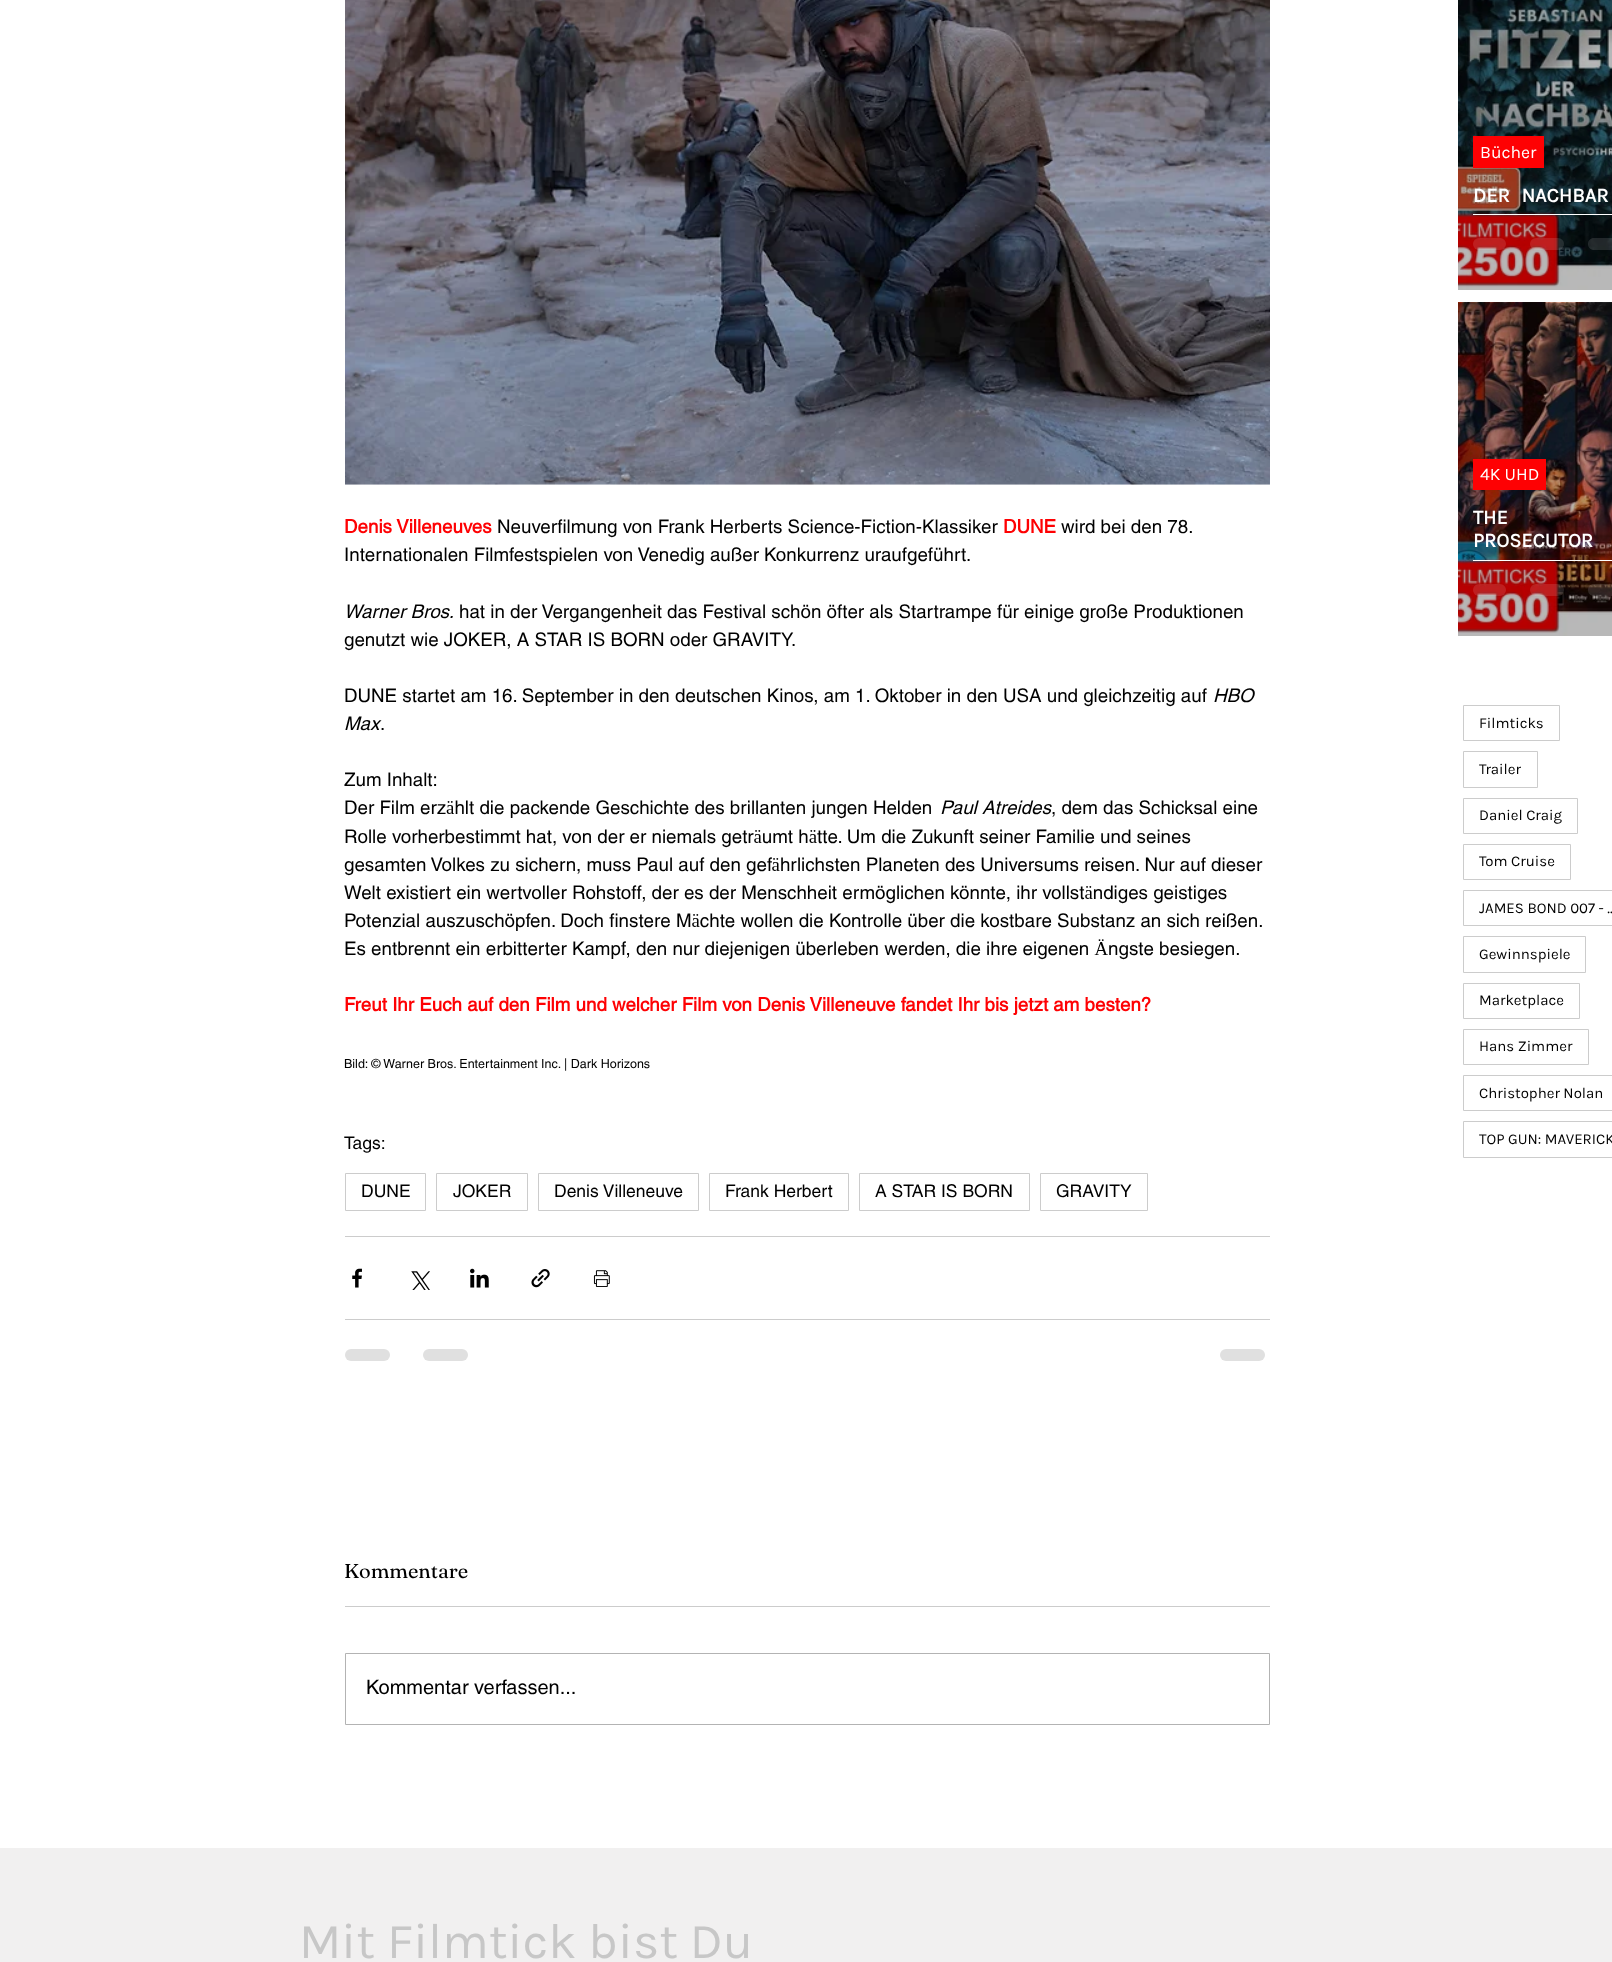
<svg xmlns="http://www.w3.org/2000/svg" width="1612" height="1962">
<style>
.a{font:17.5px Karla;fill:#fff}
.b{font:bold 20px Karla;fill:#fff}
.c{font:bold 18.75px helvetica;fill:#fe0103}
.d{font:18.75px helvetica;fill:#000}
.e{font:italic 18.75px helvetica;fill:#000}
.f{font:12.5px helvetica;fill:#000}
.g{font:17.5px helvetica;fill:#000}
.h{font:20px Fraunces;fill:#000}
.i{font:20px helvetica;fill:#000}
.j{font:15px Karla;fill:#000}
.k{font:50px Karla;fill:#c7c7c7}
</style>
<rect width="100%" height="100%" fill="#fff"/>
<image href="1.png" x="1458" y="0" width="154" height="290"/>
<path fill="#fe0103" d="M1473 136h71v32H1473z"/>
<path fill="#fff" d="M1473 214h139v1H1473z"/>
<rect fill="#ffffff1f" x="1473" y="238" width="33" height="12" rx="6"/>
<rect fill="#ffffff1f" x="1530" y="238" width="34" height="12" rx="6"/>
<path fill="#ffffff1f" d="M1594 238h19v12h-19c-3.5 0-6-2.5-6-6c0-3.5 2.5-6 6-6z"/>
<image href="2.png" x="1458" y="302" width="154" height="334"/>
<path fill="#fe0103" d="M1473 459h73v31H1473z"/>
<path fill="#fff" d="M1473 560h139v1H1473z"/>
<rect fill="#ffffff1f" x="1473" y="584" width="33" height="12" rx="6"/>
<rect fill="#ffffff1f" x="1530" y="584" width="34" height="12" rx="6"/>
<path fill="#ffffff1f" d="M1594 584h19v12h-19c-3.5 0-6-2.5-6-6c0-3.5 2.5-6 6-6z"/>
<image href="3.png" x="345" y="0" width="925" height="485"/>
<path fill="none" stroke="#ccc" d="M345.5 1173.5h80v37H345.5z"/>
<path fill="none" stroke="#ccc" d="M436.5 1173.5h91v37H436.5z"/>
<path fill="none" stroke="#ccc" d="M538.5 1173.5h160v37H538.5z"/>
<path fill="none" stroke="#ccc" d="M709.5 1173.5h139v37H709.5z"/>
<path fill="none" stroke="#ccc" d="M859.5 1173.5h170v37H859.5z"/>
<path fill="none" stroke="#ccc" d="M1040.5 1173.5h107v37H1040.5z"/>
<path fill="#ccc" d="M345 1236h925v1H345z"/>
<image href="4.png" x="352" y="1268" width="10" height="20"/>
<image href="5.png" x="411" y="1271" width="19" height="19"/>
<image href="6.png" x="470" y="1268" width="19" height="20"/>
<image href="7.png" x="531" y="1269" width="19" height="19"/>
<image href="8.png" x="593" y="1270" width="17" height="17"/>
<path fill="#ccc" d="M345 1319h925v1H345z"/>
<rect fill="#e0e0e0" x="345" y="1349" width="45" height="12" rx="6"/>
<rect fill="#e0e0e0" x="423" y="1349" width="45" height="12" rx="6"/>
<rect fill="#e0e0e0" x="1220" y="1349" width="45" height="12" rx="6"/>
<path fill="#ccc" d="M345 1606h925v1H345z"/>
<path fill="none" stroke="#b3b3b3" d="M345.5 1653.5h924v71H345.5z"/>
<path fill="none" stroke="#ccc" d="M1463.5 705.5h96v35H1463.5z"/>
<path fill="none" stroke="#ccc" d="M1463.5 751.5h74v36H1463.5z"/>
<path fill="none" stroke="#ccc" d="M1463.5 798.5h114v35H1463.5z"/>
<path fill="none" stroke="#ccc" d="M1463.5 844.5h107v35H1463.5z"/>
<path fill="none" stroke="#ccc" d="M1463.5 890.5h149v35H1463.5z"/>
<path fill="none" stroke="#ccc" d="M1463.5 936.5h122v36H1463.5z"/>
<path fill="none" stroke="#ccc" d="M1463.5 983.5h116v35H1463.5z"/>
<path fill="none" stroke="#ccc" d="M1463.5 1029.5h125v35H1463.5z"/>
<path fill="none" stroke="#ccc" d="M1463.5 1075.5h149v35H1463.5z"/>
<path fill="none" stroke="#ccc" d="M1463.5 1121.5h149v36H1463.5z"/>
<path fill="#f1f0f0" d="M0 1848h1612v114H0z"/>
<text class="a" x="1480" y="158">Bücher</text>
<text class="b" x="1473" y="202" word-spacing="7">DER NACHBAR</text>
<text class="a" x="1480" y="480">4K UHD</text>
<text class="b" x="1473" y="524">THE</text>
<text class="b" x="1473" y="547">PROSECUTOR</text>
<text class="c" x="344" y="533">Denis Villeneuves</text>
<text class="d" x="497" y="533">Neuverfilmung von Frank Herberts Science-Fiction-Klassiker</text>
<text class="c" x="1003" y="533">DUNE</text>
<text class="d" x="1061" y="533">wird bei den 78.</text>
<text class="d" x="344" y="561">Internationalen Filmfestspielen von Venedig außer Konkurrenz uraufgeführt.</text>
<text class="e" x="344" y="618">Warner Bros.</text>
<text class="d" x="459" y="618">hat in der Vergangenheit das Festival schön öfter als Startrampe für einige große Produktionen</text>
<text class="d" x="344" y="646">genutzt wie JOKER, A STAR IS BORN oder GRAVITY.</text>
<text class="d" x="344" y="702">DUNE startet am 16. September in den deutschen Kinos, am 1. Oktober in den USA und gleichzeitig auf</text>
<text class="e" x="1213" y="702">HBO</text>
<text class="e" x="344" y="730">Max</text>
<text class="d" x="380" y="730">.</text>
<text class="d" x="344" y="786">Zum Inhalt:</text>
<text class="d" x="344" y="814">Der Film erzählt die packende Geschichte des brillanten jungen Helden</text>
<text class="e" x="940" y="814">Paul Atreides</text>
<text class="d" x="1051" y="814">, dem das Schicksal eine</text>
<text class="d" x="344" y="843">Rolle vorherbestimmt hat, von der er niemals geträumt hätte. Um die Zukunft seiner Familie und seines</text>
<text class="d" x="344" y="871">gesamten Volkes zu sichern, muss Paul auf den gefährlichsten Planeten des Universums reisen. Nur auf dieser</text>
<text class="d" x="344" y="899">Welt existiert ein wertvoller Rohstoff, der es der Menschheit ermöglichen könnte, ihr vollständiges geistiges</text>
<text class="d" x="344" y="927">Potenzial auszuschöpfen. Doch finstere Mächte wollen die Kontrolle über die kostbare Substanz an sich reißen.</text>
<text class="d" x="344" y="955">Es entbrennt ein erbitterter Kampf, den nur diejenigen überleben werden, die ihre eigenen Ängste besiegen.</text>
<text class="c" x="344" y="1011">Freut Ihr Euch auf den Film und welcher Film von Denis Villeneuve fandet Ihr bis jetzt am besten?</text>
<text class="f" x="344" y="1068">Bild: © Warner Bros. Entertainment Inc. | Dark Horizons</text>
<text class="g" x="344" y="1149">Tags:</text>
<text class="g" x="361" y="1197">DUNE</text>
<text class="g" x="453" y="1197">JOKER</text>
<text class="g" x="554" y="1197">Denis Villeneuve</text>
<text class="g" x="725" y="1197">Frank Herbert</text>
<text class="g" x="875" y="1197">A STAR IS BORN</text>
<text class="g" x="1056" y="1197">GRAVITY</text>
<text class="h" x="344" y="1578">Kommentare</text>
<text class="i" x="366" y="1694">Kommentar verfassen...</text>
<text class="j" x="1479" y="728">Filmticks</text>
<text class="j" x="1479" y="774">Trailer</text>
<text class="j" x="1479" y="820">Daniel Craig</text>
<text class="j" x="1479" y="866">Tom Cruise</text>
<text class="j" x="1479" y="913">JAMES BOND 007 - …</text>
<text class="j" x="1479" y="959">Gewinnspiele</text>
<text class="j" x="1479" y="1005">Marketplace</text>
<text class="j" x="1479" y="1051">Hans Zimmer</text>
<text class="j" x="1479" y="1098">Christopher Nolan</text>
<text class="j" x="1479" y="1144">TOP GUN: MAVERICK</text>
<text class="k" x="299" y="1958">Mit Filmtick bist Du</text>
</svg>
